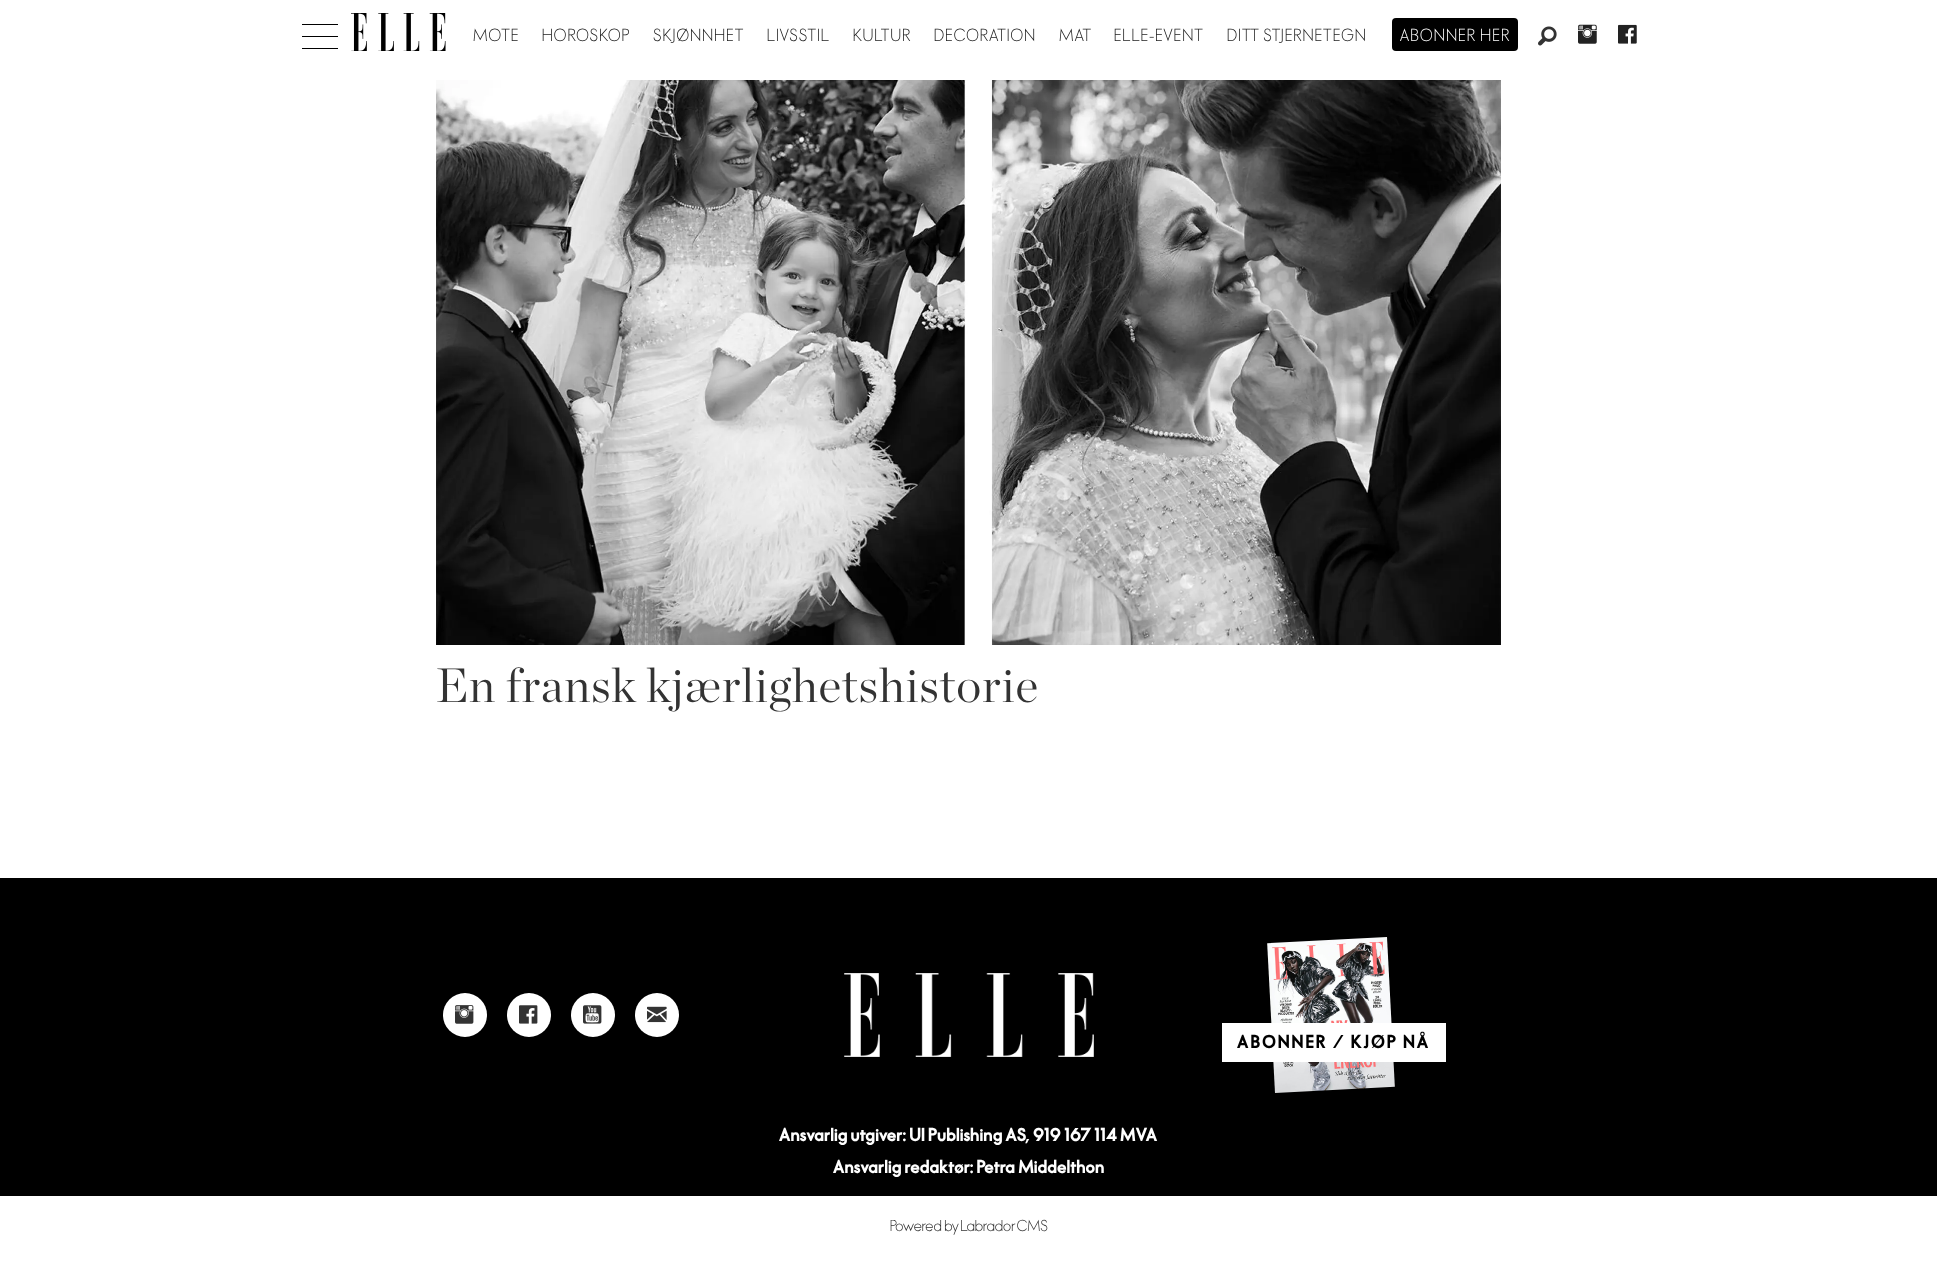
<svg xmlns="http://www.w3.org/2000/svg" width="1937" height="1272">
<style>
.a{font:16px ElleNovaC;letter-spacing:1.25px;fill:#222}
.b{font:16px ElleNovaC;letter-spacing:1.4px;fill:#fff}
.c{font:300 48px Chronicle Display;letter-spacing:1px;fill:#333}
.d{font:800 17px ElleNovaC;letter-spacing:2px;fill:#000}
.e{font:800 17px ElleNovaC;fill:#fff}
.f{font:14.4px ElleNovaC;fill:#333}
</style>
<rect width="100%" height="100%" fill="#fff"/>
<path fill="#000" d="M302 36h36v1H302z"/>
<path fill="#000" d="M302 24h36v1H302z"/>
<path fill="#000" d="M302 48h36v1H302z"/>
<image href="1.png" x="351" y="13" width="95" height="38"/>
<rect fill="#000" x="1392" y="18" width="126" height="33" rx="4"/>
<image href="2.png" x="1538" y="26" width="19" height="20"/>
<image href="3.png" x="1578" y="24" width="19" height="20"/>
<image href="4.png" x="1618" y="24" width="19" height="20"/>
<image href="5.png" x="436" y="80" width="1065" height="565"/>
<path fill="#000" d="M0 878h1937v318H0z"/>
<circle fill="#fff" cx="465" cy="1015" r="22"/>
<image href="6.png" x="455" y="1005" width="19" height="19"/>
<circle fill="#fff" cx="529" cy="1015" r="22"/>
<image href="7.png" x="519" y="1005" width="19" height="19"/>
<circle fill="#fff" cx="593" cy="1015" r="22"/>
<image href="8.png" x="583" y="1005" width="19" height="19"/>
<circle fill="#fff" cx="657" cy="1015" r="22"/>
<image href="9.png" x="647" y="1006" width="20" height="17"/>
<image href="10.png" x="844" y="973" width="250" height="84"/>
<image href="11.png" x="1267" y="937" width="128" height="156"/>
<path fill="#fff" d="M1222 1023h224v39H1222z"/>
<text class="a" x="473" y="41">MOTE</text>
<text class="a" x="542" y="41">HOROSKOP</text>
<text class="a" x="653" y="41">SKJØNNHET</text>
<text class="a" x="767" y="41">LIVSSTIL</text>
<text class="a" x="853" y="41">KULTUR</text>
<text class="a" x="934" y="41">DECORATION</text>
<text class="a" x="1059" y="41">MAT</text>
<text class="a" x="1114" y="41">ELLE-EVENT</text>
<text class="a" x="1227" y="41">DITT STJERNETEGN</text>
<text class="b" x="1400" y="41">ABONNER HER</text>
<text class="c" x="436" y="702">En fransk kjærlighetshistorie</text>
<text class="d" x="1237" y="1048">ABONNER / KJØP NÅ</text>
<text class="e" x="779" y="1141">Ansvarlig utgiver: UI Publishing AS, 919 167 114 MVA</text>
<text class="e" x="833" y="1173">Ansvarlig redaktør: Petra Middelthon</text>
<text class="f" x="890" y="1231">Powered by Labrador CMS</text>
</svg>
